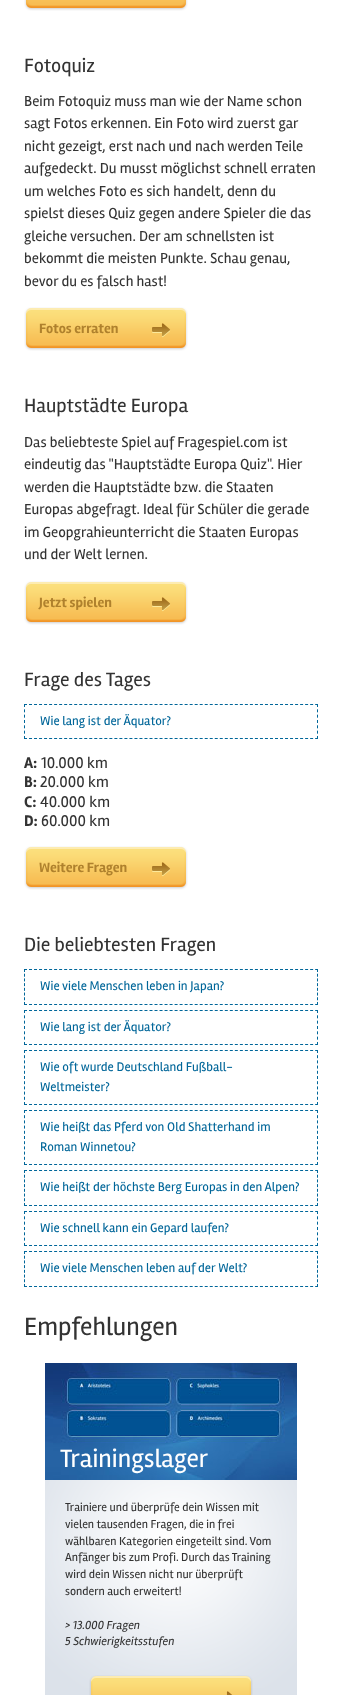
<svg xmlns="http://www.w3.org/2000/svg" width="342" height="1695">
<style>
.a{font:20px Rambla;fill:#333}
.b{font:15px Rambla;fill:#333}
.c{font:bold 14px Rambla;fill:#af812d}
.d{font:13px Rambla;fill:#069}
.e{font:bold 16px Rambla;fill:#333}
.f{font:16px Rambla;fill:#333}
.g{font:26px Rambla;fill:#333}
.h{font:26px Rambla;fill:#fff}
.i{font:12px Rambla;fill:#333}
.j{font:italic 12px Rambla;fill:#333}
</style>
<rect width="100%" height="100%" fill="#fff"/>
<image href="1.png" x="24" y="0" width="164" height="11"/>
<image href="2.png" x="24" y="307" width="164" height="44"/>
<image href="2.png" x="24" y="581" width="164" height="44"/>
<path fill="none" stroke="#069" stroke-dasharray="3 2.02" d="M24 704.5h294"/>
<path fill="none" stroke="#069" stroke-dasharray="3 2.33" d="M317.5 704v35"/>
<path fill="none" stroke="#069" stroke-dasharray="3 2.02" d="M24 738.5h294"/>
<path fill="none" stroke="#069" stroke-dasharray="3 2.33" d="M24.5 704v35"/>
<image href="2.png" x="24" y="846" width="164" height="44"/>
<path fill="none" stroke="#069" stroke-dasharray="3 2.02" d="M24 969.5h294"/>
<path fill="none" stroke="#069" stroke-dasharray="3 1.71" d="M317.5 969v36"/>
<path fill="none" stroke="#069" stroke-dasharray="3 2.02" d="M24 1004.5h294"/>
<path fill="none" stroke="#069" stroke-dasharray="3 1.71" d="M24.5 969v36"/>
<path fill="none" stroke="#069" stroke-dasharray="3 2.02" d="M24 1010.5h294"/>
<path fill="none" stroke="#069" stroke-dasharray="3 2.33" d="M317.5 1010v35"/>
<path fill="none" stroke="#069" stroke-dasharray="3 2.02" d="M24 1044.5h294"/>
<path fill="none" stroke="#069" stroke-dasharray="3 2.33" d="M24.5 1010v35"/>
<path fill="none" stroke="#069" stroke-dasharray="3 2.02" d="M24 1050.5h294"/>
<path fill="none" stroke="#069" stroke-dasharray="3 2.2" d="M317.5 1050v55"/>
<path fill="none" stroke="#069" stroke-dasharray="3 2.02" d="M24 1104.5h294"/>
<path fill="none" stroke="#069" stroke-dasharray="3 2.2" d="M24.5 1050v55"/>
<path fill="none" stroke="#069" stroke-dasharray="3 2.02" d="M24 1110.5h294"/>
<path fill="none" stroke="#069" stroke-dasharray="3 2.2" d="M317.5 1110v55"/>
<path fill="none" stroke="#069" stroke-dasharray="3 2.02" d="M24 1164.5h294"/>
<path fill="none" stroke="#069" stroke-dasharray="3 2.2" d="M24.5 1110v55"/>
<path fill="none" stroke="#069" stroke-dasharray="3 2.02" d="M24 1170.5h294"/>
<path fill="none" stroke="#069" stroke-dasharray="3 1.71" d="M317.5 1170v36"/>
<path fill="none" stroke="#069" stroke-dasharray="3 2.02" d="M24 1205.5h294"/>
<path fill="none" stroke="#069" stroke-dasharray="3 1.71" d="M24.5 1170v36"/>
<path fill="none" stroke="#069" stroke-dasharray="3 2.02" d="M24 1211.5h294"/>
<path fill="none" stroke="#069" stroke-dasharray="3 2.33" d="M317.5 1211v35"/>
<path fill="none" stroke="#069" stroke-dasharray="3 2.02" d="M24 1245.5h294"/>
<path fill="none" stroke="#069" stroke-dasharray="3 2.33" d="M24.5 1211v35"/>
<path fill="none" stroke="#069" stroke-dasharray="3 2.02" d="M24 1251.5h294"/>
<path fill="none" stroke="#069" stroke-dasharray="3 1.71" d="M317.5 1251v36"/>
<path fill="none" stroke="#069" stroke-dasharray="3 2.02" d="M24 1286.5h294"/>
<path fill="none" stroke="#069" stroke-dasharray="3 1.71" d="M24.5 1251v36"/>
<image href="3.png" x="45" y="1363" width="252" height="117"/>
<path fill="#dce2ea" d="M45 1688h252v7H45z"/>
<image href="4.png" x="45" y="1480" width="252" height="208"/>
<image href="5.png" x="89" y="1675" width="164" height="20"/>
<text class="a" x="24" y="72">Fotoquiz</text>
<text class="b" x="24" y="106">Beim Fotoquiz muss man wie der Name schon</text>
<text class="b" x="24" y="128">sagt Fotos erkennen. Ein Foto wird zuerst gar</text>
<text class="b" x="24" y="151">nicht gezeigt, erst nach und nach werden Teile</text>
<text class="b" x="24" y="173">aufgedeckt. Du musst möglichst schnell erraten</text>
<text class="b" x="24" y="196">um welches Foto es sich handelt, denn du</text>
<text class="b" x="24" y="218">spielst dieses Quiz gegen andere Spieler die das</text>
<text class="b" x="24" y="241">gleiche versuchen. Der am schnellsten ist</text>
<text class="b" x="24" y="263">bekommt die meisten Punkte. Schau genau,</text>
<text class="b" x="24" y="286">bevor du es falsch hast!</text>
<text class="c" x="39" y="333">Fotos erraten</text>
<text class="a" x="24" y="412">Hauptstädte Europa</text>
<text class="b" x="24" y="447">Das beliebteste Spiel auf Fragespiel.com ist</text>
<text class="b" x="24" y="469">eindeutig das "Hauptstädte Europa Quiz". Hier</text>
<text class="b" x="24" y="492">werden die Hauptstädte bzw. die Staaten</text>
<text class="b" x="24" y="514">Europas abgefragt. Ideal für Schüler die gerade</text>
<text class="b" x="24" y="537">im Geopgrahieunterricht die Staaten Europas</text>
<text class="b" x="24" y="559">und der Welt lernen.</text>
<text class="c" x="39" y="607">Jetzt spielen</text>
<text class="a" x="24" y="686">Frage des Tages</text>
<text class="d" x="40" y="725">Wie lang ist der Äquator?</text>
<text class="e" x="24" y="768">A:</text>
<text class="f" x="41" y="768">10.000 km</text>
<text class="e" x="24" y="787">B:</text>
<text class="f" x="40" y="787">20.000 km</text>
<text class="e" x="24" y="807">C:</text>
<text class="f" x="40" y="807">40.000 km</text>
<text class="e" x="24" y="826">D:</text>
<text class="f" x="41" y="826">60.000 km</text>
<text class="c" x="39" y="872">Weitere Fragen</text>
<text class="a" x="24" y="951">Die beliebtesten Fragen</text>
<text class="d" x="40" y="990">Wie viele Menschen leben in Japan?</text>
<text class="d" x="40" y="1031">Wie lang ist der Äquator?</text>
<text class="d" x="40" y="1071">Wie oft wurde Deutschland Fußball-</text>
<text class="d" x="40" y="1091">Weltmeister?</text>
<text class="d" x="40" y="1131">Wie heißt das Pferd von Old Shatterhand im</text>
<text class="d" x="40" y="1151">Roman Winnetou?</text>
<text class="d" x="40" y="1191">Wie heißt der höchste Berg Europas in den Alpen?</text>
<text class="d" x="40" y="1232">Wie schnell kann ein Gepard laufen?</text>
<text class="d" x="40" y="1272">Wie viele Menschen leben auf der Welt?</text>
<text class="g" x="24" y="1335">Empfehlungen</text>
<text class="h" x="60" y="1467">Trainingslager</text>
<text class="i" x="65" y="1511">Trainiere und überprüfe dein Wissen mit</text>
<text class="i" x="65" y="1528">vielen tausenden Fragen, die in frei</text>
<text class="i" x="65" y="1545">wählbaren Kategorien eingeteilt sind. Vom</text>
<text class="i" x="65" y="1561">Anfänger bis zum Profi. Durch das Training</text>
<text class="i" x="65" y="1578">wird dein Wissen nicht nur überprüft</text>
<text class="i" x="65" y="1595">sondern auch erweitert!</text>
<text class="j" x="65" y="1629">&gt; 13.000 Fragen</text>
<text class="j" x="65" y="1645">5 Schwierigkeitsstufen</text>
</svg>
